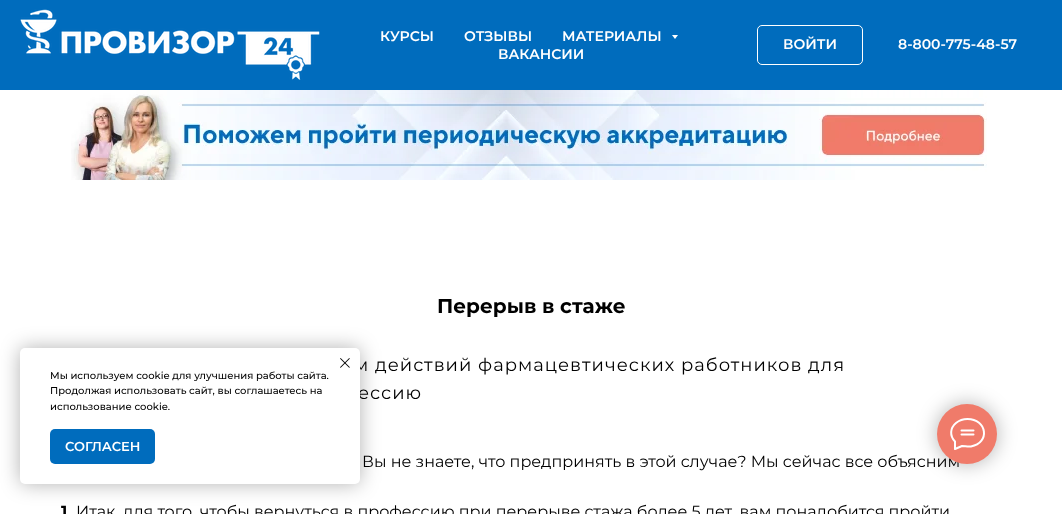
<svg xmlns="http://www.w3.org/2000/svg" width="1062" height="514">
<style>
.a{font:600 14px Montserrat;fill:#fff}
.b{font:bold 20px Montserrat;fill:#000}
.c{font:18px Montserrat;letter-spacing:1px;fill:#000}
.d{font:500 10px Montserrat;fill:#000}
.e{font:600 13px Montserrat;fill:#fff}
.f{font:16px Montserrat;fill:#000}
.g{font:bold 16px Montserrat;fill:#000}
</style>
<rect width="100%" height="100%" fill="#fff"/>
<path fill="#006cbd" d="M0 0h1062v90H0z"/>
<image href="1.png" x="20" y="9" width="300" height="71"/>
<path fill="#fff" d="M672 35h6l-3 4z"/>
<rect fill="none" stroke="#fff" x="757.5" y="25.5" width="105" height="39" rx="4.5"/>
<image href="2.png" x="71" y="90" width="916" height="90"/>
<rect fill="#0000004d" filter="blur(10px)" x="20" y="348" width="340" height="136" rx="5"/>
<rect fill="#0000004d" filter="blur(10px)" x="937" y="404" width="60" height="60" rx="30"/>
<text class="a" x="380" y="41">КУРСЫ</text>
<text class="a" x="464" y="41">ОТЗЫВЫ</text>
<text class="a" x="562" y="41">МАТЕРИАЛЫ</text>
<text class="a" x="498" y="59">ВАКАНСИИ</text>
<text class="a" x="783" y="49">ВОЙТИ</text>
<text class="a" x="898" y="49">8-800-775-48-57</text>
<text class="b" x="437" y="313">Перерыв в стаже</text>
<text class="c" x="354" y="371">м действий фармацевтических работников для</text>
<text class="c" x="358" y="399">ессию</text>
<rect fill="#fff" x="20" y="348" width="340" height="136" rx="5"/>
<image href="3.png" x="340" y="358" width="10" height="10"/>
<text class="d" x="50" y="379">Мы используем cookie для улучшения работы сайта.</text>
<text class="d" x="50" y="394">Продолжая использовать сайт, вы соглашаетесь на</text>
<text class="d" x="50" y="410">использование cookie.</text>
<rect fill="#006cbd" x="50" y="429" width="105" height="35" rx="5"/>
<text class="e" x="65" y="451">СОГЛАСЕН</text>
<text class="f" x="362" y="467">Вы не знаете, что предпринять в этой случае? Мы сейчас все объясним</text>
<circle fill="#f07b6a" cx="967" cy="434" r="30"/>
<path fill="none" stroke="#fff" stroke-width="2" stroke-linecap="round" stroke-linejoin="round" d="M961.5 430.5h12m-12 4h12m-18.5 7c-5.5-5.5-5-13.5 1-18.5c3-2.5 7.5-4 11.5-4c19.5 0 23 24 3.5 27.5c-4 .5-5.5-.5-9-.5l-7 3v-7z"/>
<text class="g" x="61" y="517">1</text>
<text class="f" x="76" y="517">Итак, для того, чтобы вернуться в профессию при перерыве стажа более 5 лет, вам понадобится пройти</text>
</svg>
